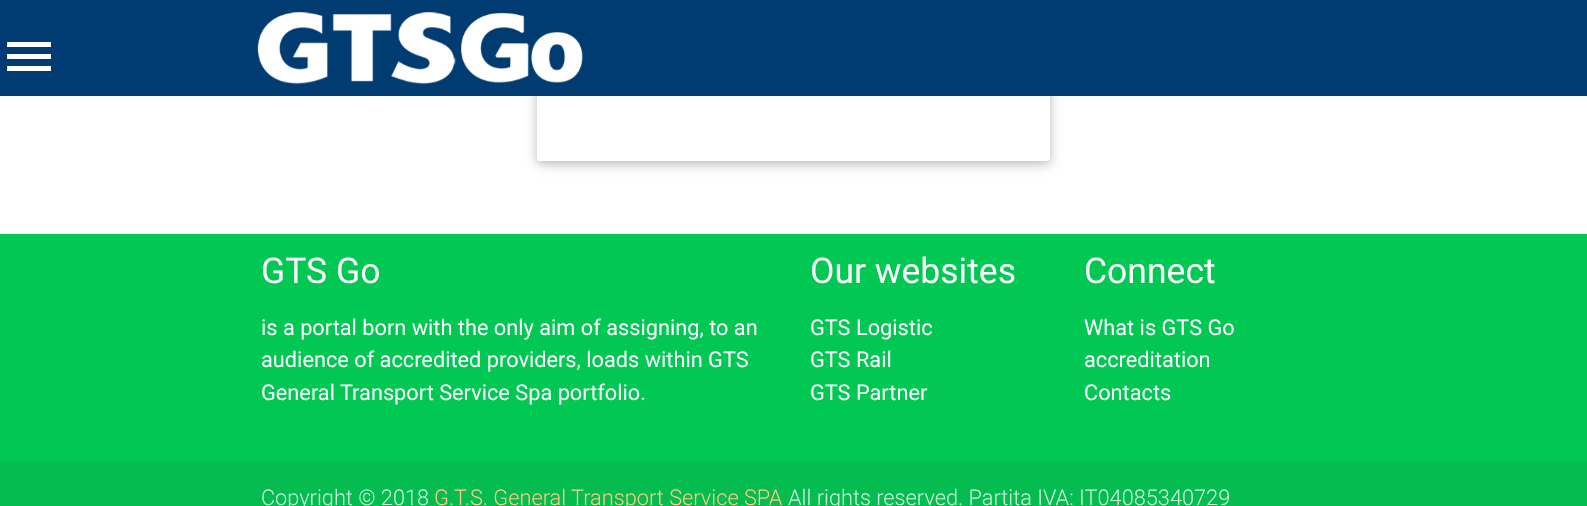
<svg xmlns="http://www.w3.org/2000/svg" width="1587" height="506">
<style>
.a{font:35.5px Roboto;fill:#fff}
.b{font:21.75px Roboto;fill:#fff}
.c{font:300 21.75px Roboto;fill:#cdf2dc}
.d{font:300 21.75px Roboto;fill:#ffcc80}
</style>
<rect width="100%" height="100%" fill="#fff"/>
<rect fill="#0000001f" filter="blur(7.5px)" x="537" y="-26" width="513" height="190" rx="3"/>
<rect fill="#00000029" filter="blur(4px)" x="537" y="-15" width="513" height="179" rx="3"/>
<rect fill="#fff" x="537" y="-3" width="513" height="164" rx="3"/>
<path fill="#003c72" d="M0 0h1587v96H0z"/>
<path fill="#fff" d="M7 71h44v-5h-44zm0-12h44v-5h-44zm0-17v5h44v-5z"/>
<image href="1.png" x="257" y="12" width="326" height="73"/>
<path fill="#00c853" d="M0 234h1587v228H0z"/>
<path fill="#04bc50" d="M0 462h1587v44H0z"/>
<text class="a" x="261" y="283">GTS Go</text>
<text class="b" x="261" y="335">is a portal born with the only aim of assigning, to an</text>
<text class="b" x="261" y="367">audience of accredited providers, loads within GTS</text>
<text class="b" x="261" y="400">General Transport Service Spa portfolio.</text>
<text class="a" x="810" y="283">Our websites</text>
<text class="b" x="810" y="335">GTS Logistic</text>
<text class="b" x="810" y="367">GTS Rail</text>
<text class="b" x="810" y="400">GTS Partner</text>
<text class="a" x="1084" y="283">Connect</text>
<text class="b" x="1084" y="335">What is GTS Go</text>
<text class="b" x="1084" y="367">accreditation</text>
<text class="b" x="1084" y="400">Contacts</text>
<text class="c" x="261" y="505">Copyright © 2018</text>
<text class="d" x="434" y="505">G.T.S. General Transport Service SPA</text>
<text class="c" x="788" y="505">All rights reserved. Partita IVA: IT04085340729</text>
</svg>
